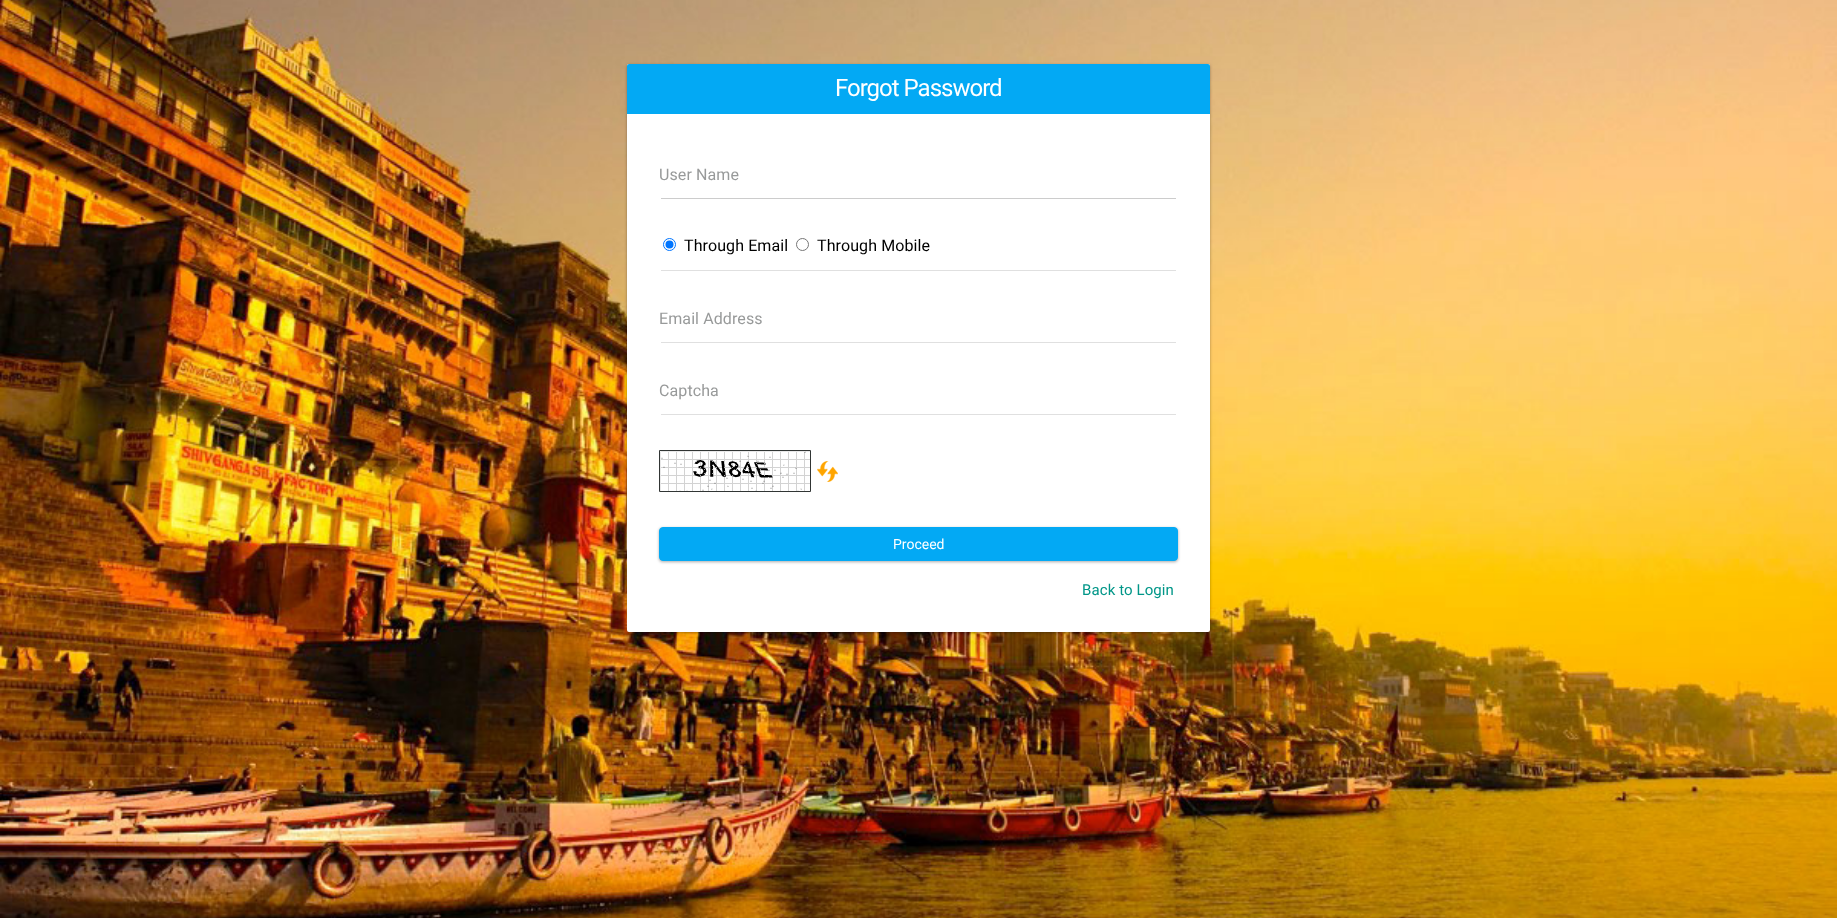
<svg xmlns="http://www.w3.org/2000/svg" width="1837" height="918">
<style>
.a{font:24px Roboto;letter-spacing:-1px;fill:#fff}
.b{font:16px Roboto;letter-spacing:0.1px;fill:#989a9a}
.c{font:16px Roboto;letter-spacing:0.1px;fill:#000}
.d{font:14px Roboto;fill:#fff}
.e{font:15px Roboto;letter-spacing:0.1px;fill:#009688}
</style>
<rect width="100%" height="100%" fill="#fff"/>
<image href="1.png" x="0" y="0" width="1837" height="918"/>
<rect fill="#00000054" filter="blur(1.5px)" x="627" y="65" width="583" height="568" rx="2"/>
<rect fill="#fff" x="627" y="64" width="583" height="568" rx="2"/>
<path fill="#03a9f4" d="M629 64h579c1 0 2 1 2 2v48h-583v-48c0-1 1-2 2-2z"/>
<path fill="#ccc" d="M661 198h515v1H661z"/>
<path fill="#e0e0e0" d="M661 270h515v1H661z"/>
<circle fill="none" stroke="#0075ff" cx="669.5" cy="244.5" r="6"/>
<circle fill="#0075ff" cx="669.5" cy="244.5" r="4"/>
<circle fill="none" stroke="#767676" cx="802.5" cy="244.5" r="6"/>
<path fill="#e0e0e0" d="M661 342h515v1H661z"/>
<path fill="#e0e0e0" d="M661 414h515v1H661z"/>
<path fill="none" stroke="#313534" d="M659.5 450.5h151v41H659.5z"/>
<image href="2.png" x="660" y="451" width="150" height="40"/>
<image href="3.png" x="817" y="461" width="21" height="21"/>
<rect fill="#00000054" filter="blur(1.5px)" x="659" y="528" width="519" height="34" rx="4"/>
<rect fill="#03a9f4" stroke="#03a9f4" x="659.5" y="527.5" width="518" height="33" rx="3.5"/>
<text class="a" x="835" y="96">Forgot Password</text>
<text class="b" x="659" y="180">User Name</text>
<text class="c" x="684" y="251">Through Email</text>
<text class="c" x="817" y="251">Through Mobile</text>
<text class="b" x="659" y="324">Email Address</text>
<text class="b" x="659" y="396">Captcha</text>
<text class="d" x="893" y="549">Proceed</text>
<text class="e" x="1082" y="595">Back to Login</text>
</svg>
